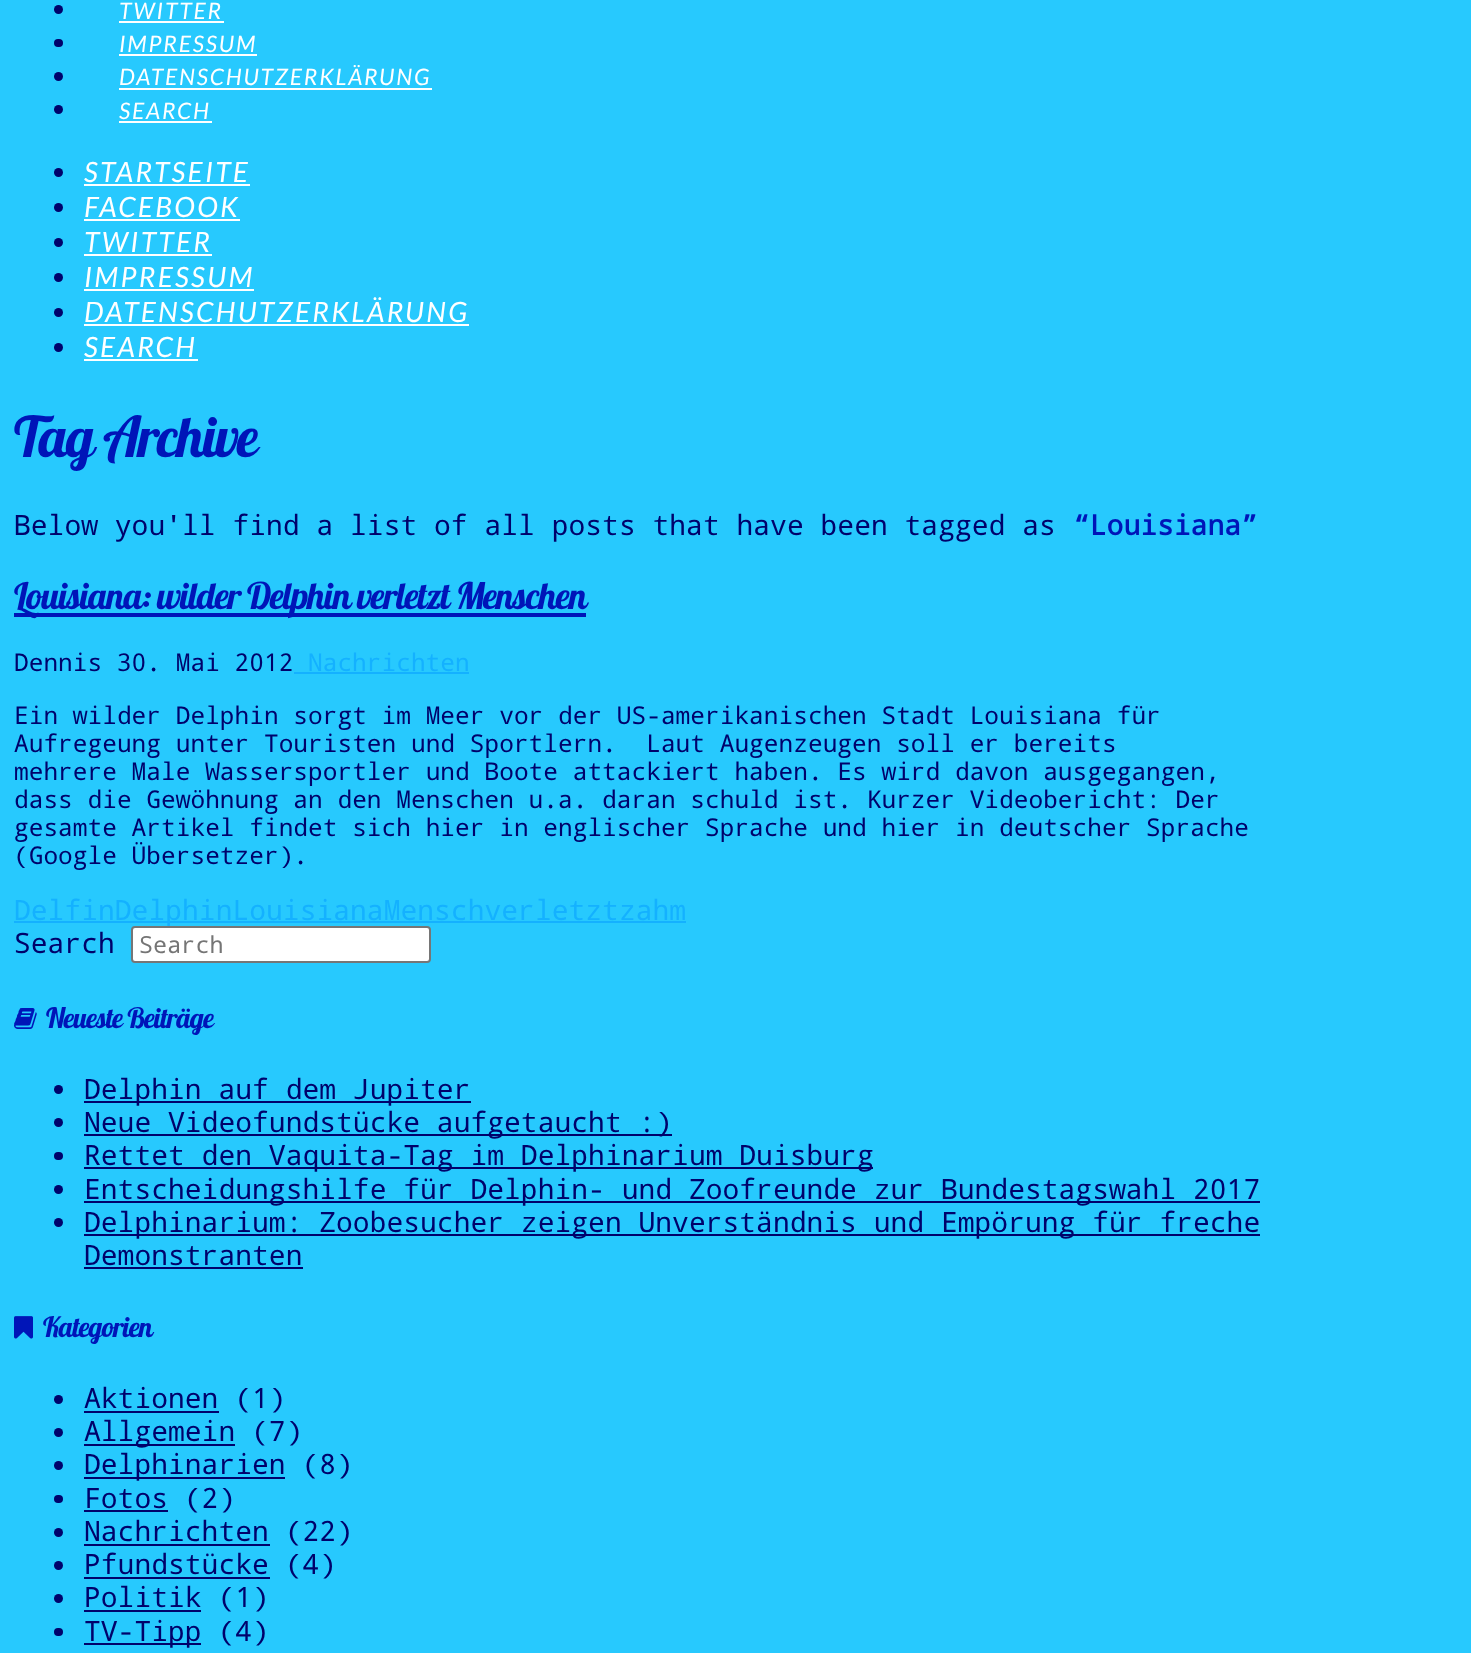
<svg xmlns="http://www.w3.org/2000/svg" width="1471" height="1653">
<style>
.a{font:italic 22.75px Lato;letter-spacing:1.9px;fill:#fff}
.b{font:italic 28px Lato;letter-spacing:2.4px;fill:#fff}
.c{font:56px 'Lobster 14';letter-spacing:-2px;fill:#0015b8}
.d{font:28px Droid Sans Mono;fill:#00026b}
.e{font:bold 28px Droid Sans Mono;fill:#0015b8}
.f{font:36.75px 'Lobster 14';letter-spacing:-1.3px;fill:#0015b8}
.g{font:24.5px Droid Sans Mono;fill:#00026b}
.h{font:24.5px Droid Sans Mono;fill:#14b1ff}
.i{font:28px Droid Sans Mono;fill:#14b1ff}
.j{font:23.5px Droid Sans Mono;fill:#757575}
.k{font:28px 'Lobster 14';letter-spacing:-1px;fill:#0015b8}
</style>
<rect width="100%" height="100%" fill="#27c9fe"/>
<circle fill="#00026b" cx="58.5" cy="9.5" r="4.5"/>
<path fill="#fff" d="M119 21h105v2H119z"/>
<rect fill="#00026b" x="54" y="39" width="9" height="8" rx="4"/>
<path fill="#fff" d="M119 54h138v2H119z"/>
<circle fill="#00026b" cx="58.5" cy="76.5" r="4.5"/>
<path fill="#fff" d="M119 88h313v2H119z"/>
<circle fill="#00026b" cx="58.5" cy="109.5" r="4.5"/>
<path fill="#fff" d="M119 121h93v2H119z"/>
<circle fill="#00026b" cx="58.5" cy="172.5" r="4.5"/>
<path fill="#fff" d="M84 184h166v2H84z"/>
<circle fill="#00026b" cx="58.5" cy="207.5" r="4.5"/>
<path fill="#fff" d="M84 219h156v2H84z"/>
<circle fill="#00026b" cx="58.5" cy="242.5" r="4.5"/>
<path fill="#fff" d="M84 254h128v2H84z"/>
<circle fill="#00026b" cx="58.5" cy="277.5" r="4.5"/>
<path fill="#fff" d="M84 289h170v2H84z"/>
<circle fill="#00026b" cx="58.5" cy="312.5" r="4.5"/>
<path fill="#fff" d="M84 324h385v2H84z"/>
<circle fill="#00026b" cx="58.5" cy="347.5" r="4.5"/>
<path fill="#fff" d="M84 359h114v2H84z"/>
<path fill="#0015b8" d="M14 613h572v4H14z"/>
<path fill="#14b1ff" d="M294 672h175v2H294z"/>
<path fill="#14b1ff" d="M14 921h672v2H14z"/>
<image href="1.png" x="14" y="1008" width="23" height="21"/>
<circle fill="#00026b" cx="58.5" cy="1089.5" r="4.5"/>
<path fill="#00026b" d="M84 1101h387v2H84z"/>
<circle fill="#00026b" cx="58.5" cy="1122.5" r="4.5"/>
<path fill="#00026b" d="M84 1134h588v2H84z"/>
<rect fill="#00026b" x="54" y="1152" width="9" height="8" rx="4"/>
<path fill="#00026b" d="M84 1167h789v2H84z"/>
<circle fill="#00026b" cx="58.5" cy="1189.5" r="4.5"/>
<path fill="#00026b" d="M84 1201h1176v2H84z"/>
<circle fill="#00026b" cx="58.5" cy="1222.5" r="4.5"/>
<path fill="#00026b" d="M84 1234h1176v2H84z"/>
<path fill="#00026b" d="M84 1267h219v2H84z"/>
<image href="2.png" x="14" y="1316" width="19" height="23"/>
<circle fill="#00026b" cx="58.5" cy="1399.5" r="4.5"/>
<path fill="#00026b" d="M84 1411h135v2H84z"/>
<circle fill="#00026b" cx="58.5" cy="1432.5" r="4.5"/>
<path fill="#00026b" d="M84 1444h151v2H84z"/>
<circle fill="#00026b" cx="58.5" cy="1465.5" r="4.5"/>
<path fill="#00026b" d="M84 1477h201v2H84z"/>
<rect fill="#00026b" x="54" y="1495" width="9" height="8" rx="4"/>
<path fill="#00026b" d="M84 1510h84v2H84z"/>
<circle fill="#00026b" cx="58.5" cy="1532.5" r="4.5"/>
<path fill="#00026b" d="M84 1544h186v2H84z"/>
<circle fill="#00026b" cx="58.5" cy="1565.5" r="4.5"/>
<path fill="#00026b" d="M84 1577h186v2H84z"/>
<circle fill="#00026b" cx="58.5" cy="1598.5" r="4.5"/>
<path fill="#00026b" d="M84 1610h117v2H84z"/>
<rect fill="#00026b" x="54" y="1628" width="9" height="8" rx="4"/>
<path fill="#00026b" d="M84 1643h117v2H84z"/>
<text class="a" x="119" y="19">TWITTER</text>
<text class="a" x="119" y="52">IMPRESSUM</text>
<text class="a" x="119" y="85">DATENSCHUTZERKLÄRUNG</text>
<text class="a" x="119" y="119">SEARCH</text>
<text class="b" x="84" y="182">STARTSEITE</text>
<text class="b" x="84" y="217">FACEBOOK</text>
<text class="b" x="84" y="252">TWITTER</text>
<text class="b" x="84" y="287">IMPRESSUM</text>
<text class="b" x="84" y="322">DATENSCHUTZERKLÄRUNG</text>
<text class="b" x="84" y="357">SEARCH</text>
<text class="c" x="14" y="457">Tag Archive</text>
<text class="d" x="14" y="535">Below you'll find a list of all posts that have been tagged as</text>
<text class="e" x="1073" y="535">“Louisiana”</text>
<text class="f" x="14" y="609">Louisiana: wilder Delphin verletzt Menschen</text>
<text class="g" x="14" y="671">Dennis 30. Mai 2012</text>
<text class="h" x="308" y="671">Nachrichten</text>
<text class="g" x="14" y="724">Ein wilder Delphin sorgt im Meer vor der US-amerikanischen Stadt Louisiana für</text>
<text class="g" xml:space="preserve" x="14" y="752">Aufregeung unter Touristen und Sportlern.  Laut Augenzeugen soll er bereits</text>
<text class="g" x="14" y="780">mehrere Male Wassersportler und Boote attackiert haben. Es wird davon ausgegangen,</text>
<text class="g" x="14" y="808">dass die Gewöhnung an den Menschen u.a. daran schuld ist. Kurzer Videobericht: Der</text>
<text class="g" x="14" y="836">gesamte Artikel findet sich hier in englischer Sprache und hier in deutscher Sprache</text>
<text class="g" x="14" y="864">(Google Übersetzer).</text>
<text class="i" x="14" y="920">DelfinDelphinLouisianaMenschverletztzahm</text>
<text class="d" x="14" y="953">Search</text>
<rect fill="#fff" stroke="#767676" stroke-width="2" x="132" y="927" width="298" height="35" rx="3"/>
<text class="j" x="139" y="953">Search</text>
<text class="k" x="46" y="1028">Neueste Beiträge</text>
<text class="d" x="84" y="1099">Delphin auf dem Jupiter</text>
<text class="d" x="84" y="1132">Neue Videofundstücke aufgetaucht :)</text>
<text class="d" x="84" y="1165">Rettet den Vaquita-Tag im Delphinarium Duisburg</text>
<text class="d" x="84" y="1199">Entscheidungshilfe für Delphin- und Zoofreunde zur Bundestagswahl 2017</text>
<text class="d" x="84" y="1232">Delphinarium: Zoobesucher zeigen Unverständnis und Empörung für freche</text>
<text class="d" x="84" y="1265">Demonstranten</text>
<text class="k" x="43" y="1337">Kategorien</text>
<text class="d" x="84" y="1408">Aktionen (1)</text>
<text class="d" x="84" y="1441">Allgemein (7)</text>
<text class="d" x="84" y="1474">Delphinarien (8)</text>
<text class="d" x="84" y="1508">Fotos (2)</text>
<text class="d" x="84" y="1541">Nachrichten (22)</text>
<text class="d" x="84" y="1574">Pfundstücke (4)</text>
<text class="d" x="84" y="1607">Politik (1)</text>
<text class="d" x="84" y="1641">TV-Tipp (4)</text>
</svg>
